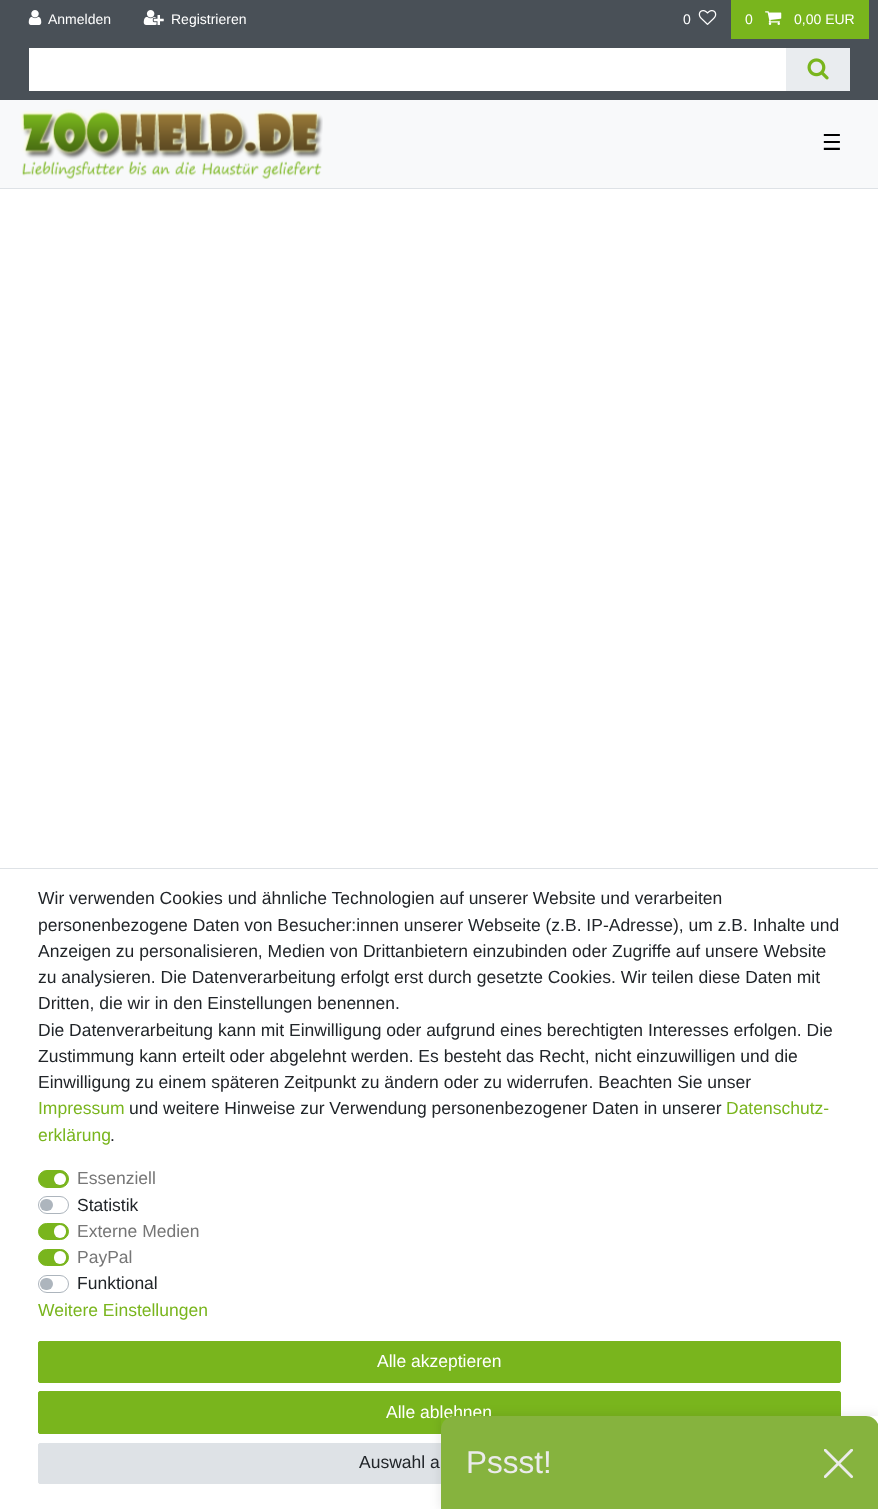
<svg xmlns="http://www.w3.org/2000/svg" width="878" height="1509">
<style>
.a{font:14px Liberation Sans;fill:#fff}
.b{font:22px DejaVu Sans;fill:#000}
.c{font:17.5px Liberation Sans;fill:#212529}
.d{font:17.5px Liberation Sans;fill:#79b51d}
.e{font:17.5px Liberation Sans;fill:#767676}
.f{font:17.5px Liberation Sans;fill:#fff}
.g{font:31.5px Liberation Sans;fill:#ebebeb}
</style>
<defs>
<clipPath id="clip1"><path d="M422 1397h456v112h-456zm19 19h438v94h-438z" clip-rule="evenodd"/></clipPath>
</defs>
<rect width="100%" height="100%" fill="#f8f9fa"/>
<path fill="#495057" d="M0 0h878v100H0z"/>
<image href="1.png" x="28" y="10" width="14" height="15"/>
<image href="2.png" x="143" y="10" width="21" height="15"/>
<image href="3.png" x="698" y="10" width="19" height="15"/>
<path fill="#79b51d" d="M731 0h138v39H731z"/>
<image href="4.png" x="765" y="11" width="17" height="14"/>
<path fill="#fff" d="M29 48h757v43H29z"/>
<path fill="#e9ecef" d="M786 48h64v43H786z"/>
<image href="5.png" x="807" y="58" width="22" height="22"/>
<path fill="#dee2e6" d="M0 188h878v1H0z"/>
<image href="6.png" x="20" y="109" width="303" height="70"/>
<path fill="#fff" d="M0 189h878v679H0z"/>
<path fill="#fff" d="M0 869h878v640H0z"/>
<path fill="#dee2e6" d="M0 868h878v1H0z"/>
<rect fill="#79b51d" stroke="#79b51d" x="38.5" y="1170.5" width="30" height="17" rx="8.5"/>
<circle fill="#fff" cx="60" cy="1179" r="6"/>
<rect fill="none" stroke="#adb5bd" x="38.5" y="1196.5" width="30" height="17" rx="8.5"/>
<rect fill="#adb5bd" x="40" y="1199" width="13" height="12" rx="6"/>
<rect fill="#79b51d" stroke="#79b51d" x="38.5" y="1223.5" width="30" height="16" rx="8"/>
<rect fill="#fff" x="54" y="1225" width="12" height="13" rx="6"/>
<rect fill="#79b51d" stroke="#79b51d" x="38.5" y="1249.5" width="30" height="16" rx="8"/>
<rect fill="#fff" x="54" y="1251" width="12" height="13" rx="6"/>
<rect fill="none" stroke="#adb5bd" x="38.5" y="1275.5" width="30" height="17" rx="8.5"/>
<rect fill="#adb5bd" x="40" y="1278" width="13" height="12" rx="6"/>
<rect fill="#79b51d" stroke="#79b51d" x="38.5" y="1341.5" width="802" height="41" rx="1.5"/>
<rect fill="#79b51d" stroke="#79b51d" x="38.5" y="1391.5" width="802" height="42" rx="1.5"/>
<rect fill="#dee2e6" stroke="#dee2e6" x="38.5" y="1443.5" width="802" height="40" rx="1.5"/>
<g clip-path="url(#clip1)">
<path fill="#0000001a" filter="blur(6px)" d="M441 1416h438v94H441z"/>
</g>
<text class="a" x="48" y="24">Anmelden</text>
<text class="a" x="171" y="24">Registrieren</text>
<text class="a" x="683" y="24">0</text>
<text class="a" x="745" y="24">0</text>
<text class="a" x="794" y="24">0,00 EUR</text>
<text class="b" x="822" y="150">☰</text>
<text class="c" x="38" y="904">Wir verwenden Cookies und ähnliche Technologien auf unserer Website und verarbeiten</text>
<text class="c" x="38" y="931">personenbezogene Daten von Besucher:innen unserer Webseite (z.B. IP-Adresse), um z.B. Inhalte und</text>
<text class="c" x="38" y="957">Anzeigen zu personalisieren, Medien von Drittanbietern einzubinden oder Zugriffe auf unsere Website</text>
<text class="c" x="38" y="983">zu analysieren. Die Datenverarbeitung erfolgt erst durch gesetzte Cookies. Wir teilen diese Daten mit</text>
<text class="c" x="38" y="1009">Dritten, die wir in den Einstellungen benennen.</text>
<text class="c" x="38" y="1036">Die Datenverarbeitung kann mit Einwilligung oder aufgrund eines berechtigten Interesses erfolgen. Die</text>
<text class="c" x="38" y="1062">Zustimmung kann erteilt oder abgelehnt werden. Es besteht das Recht, nicht einzuwilligen und die</text>
<text class="c" x="38" y="1088">Einwilligung zu einem späteren Zeitpunkt zu ändern oder zu widerrufen. Beachten Sie unser</text>
<text class="d" x="38" y="1114">Impressum</text>
<text class="c" x="129" y="1114">und weitere Hinweise zur Verwendung personenbezogener Daten in unserer</text>
<text class="d" x="726" y="1114">Datenschutz-</text>
<text class="d" x="38" y="1141">erklärung</text>
<text class="c" x="110" y="1141">.</text>
<text class="e" x="77" y="1184">Essenziell</text>
<text class="c" x="77" y="1211">Statistik</text>
<text class="e" x="77" y="1237">Externe Medien</text>
<text class="e" x="77" y="1263">PayPal</text>
<text class="c" x="77" y="1289">Funktional</text>
<text class="d" x="38" y="1316">Weitere Einstellungen</text>
<text class="f" x="377" y="1367">Alle akzeptieren</text>
<text class="f" x="386" y="1418">Alle ablehnen</text>
<text class="c" x="359" y="1468">Auswahl a</text>
<path fill="#86b33e" d="M454 1416h412c7 0 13 6 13 13v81h-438v-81c0-7 6-13 13-13z"/>
<text class="g" x="466" y="1473">Pssst!</text>
<image href="7.png" x="824" y="1449" width="30" height="29"/>
</svg>
